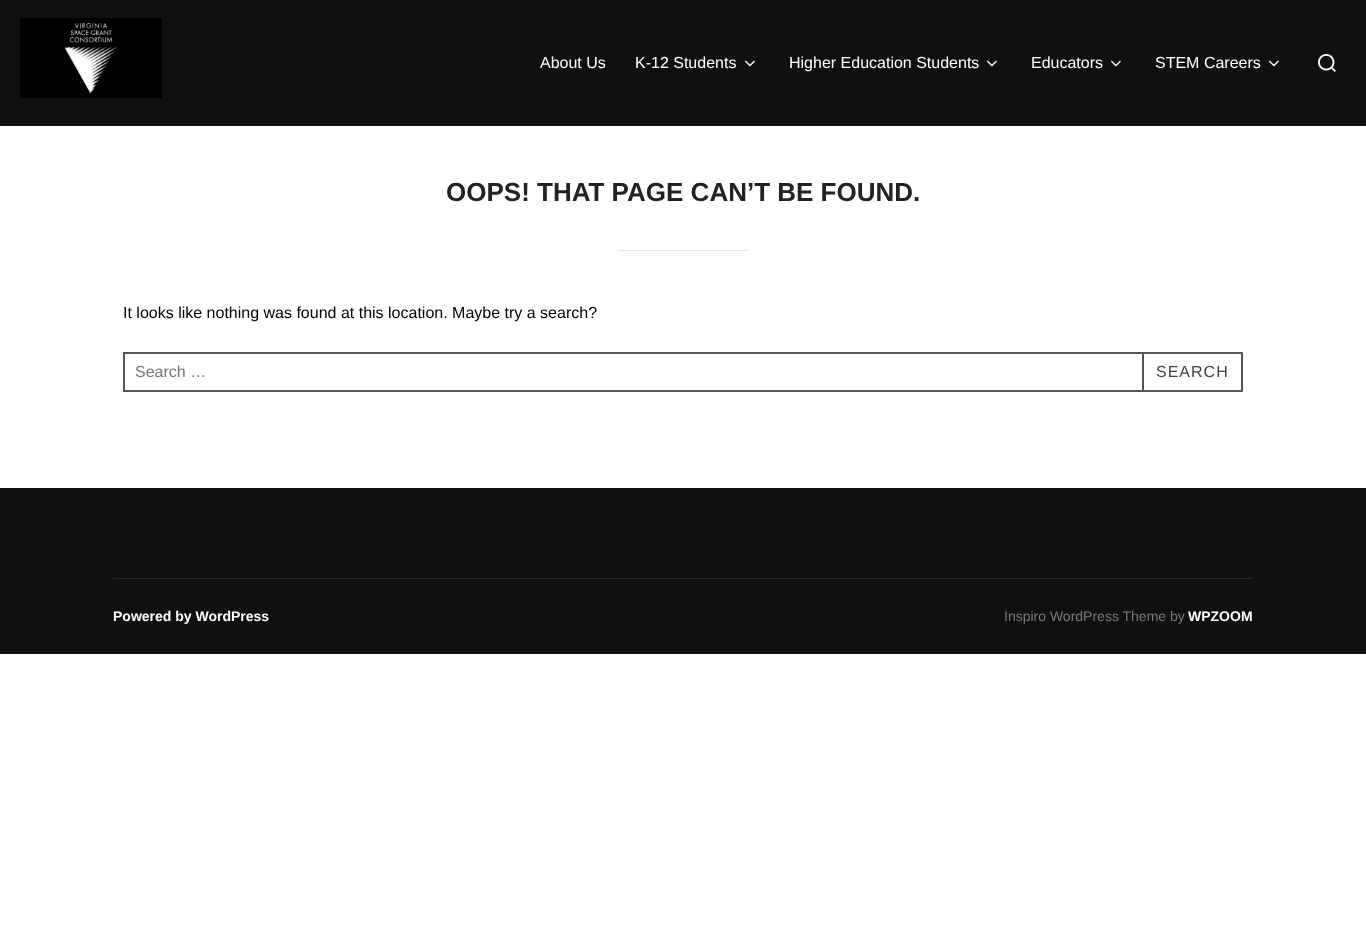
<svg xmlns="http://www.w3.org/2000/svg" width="1366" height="937">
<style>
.a{font:16px Liberation Sans;fill:#fff}
.b{font:bold 26px Liberation Sans;fill:#222}
.c{font:16px Liberation Sans;fill:#000}
.d{font:16px Liberation Sans;fill:#757575}
.e{font:16px Liberation Sans;letter-spacing:1px;fill:#444}
.f{font:bold 14px Liberation Sans;fill:#fff}
.g{font:14px Liberation Sans;fill:#78787f}
</style>
<rect width="100%" height="100%" fill="#fff"/>
<path fill="#101010" d="M0 0h1366v126H0z"/>
<image href="1.png" x="20" y="18" width="142" height="80"/>
<image href="2.png" x="744" y="60" width="11" height="7"/>
<image href="2.png" x="986" y="60" width="11" height="7"/>
<image href="2.png" x="1110" y="60" width="11" height="7"/>
<image href="2.png" x="1268" y="60" width="11" height="7"/>
<image href="3.png" x="1318" y="54" width="18" height="18"/>
<path fill="#e6e6e6" d="M618 250h130v1H618z"/>
<path fill="none" stroke="#565555" stroke-width="2" d="M124 353h1118v38H124z"/>
<path fill="none" stroke="#565555" stroke-width="2" d="M1143 353h99v38H1143z"/>
<path fill="#101010" d="M0 488h1366v166H0z"/>
<path fill="#282828" d="M113 578h1140v1H113z"/>
<text class="a" x="540" y="68">About Us</text>
<text class="a" x="635" y="68">K-12 Students</text>
<text class="a" x="789" y="68">Higher Education Students</text>
<text class="a" x="1031" y="68">Educators</text>
<text class="a" x="1155" y="68">STEM Careers</text>
<text class="b" x="446" y="201">OOPS! THAT PAGE CAN’T BE FOUND.</text>
<text class="c" x="123" y="318">It looks like nothing was found at this location. Maybe try a search?</text>
<text class="d" x="135" y="377">Search …</text>
<text class="e" x="1156" y="377">SEARCH</text>
<text class="f" x="113" y="621">Powered by WordPress</text>
<text class="g" x="1004" y="621">Inspiro WordPress Theme by</text>
<text class="f" x="1188" y="621">WPZOOM</text>
</svg>
